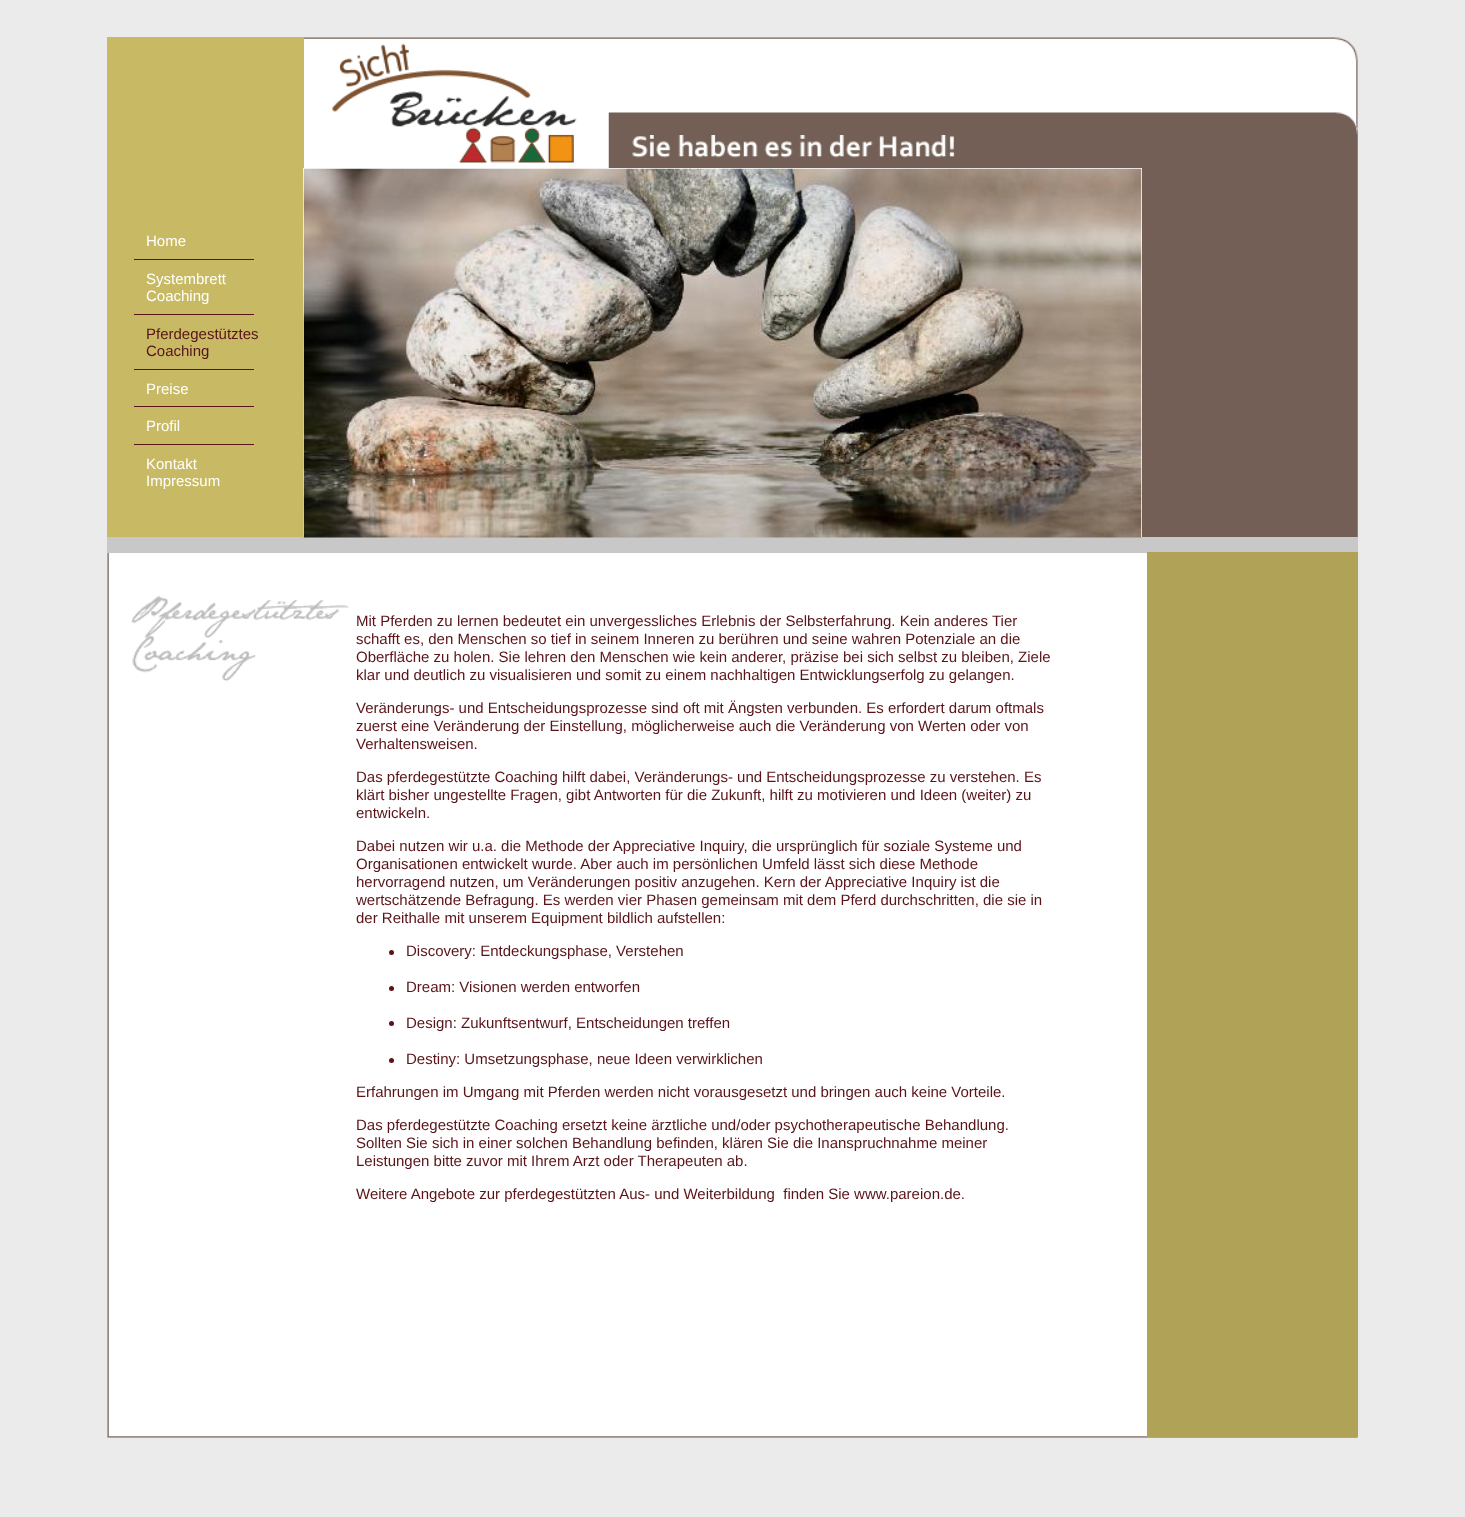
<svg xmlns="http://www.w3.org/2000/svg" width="1465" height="1517">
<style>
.a{font:15px Liberation Sans;fill:#fff}
.b{font:15px Liberation Sans;fill:#5a1419}
</style>
<rect width="100%" height="100%" fill="#ebebeb"/>
<image href="1.png" x="107" y="37" width="1251" height="1401"/>
<path fill="#c8ba65" d="M107 37h197v500H107z"/>
<image href="2.png" x="608" y="112" width="750" height="425"/>
<image href="3.png" x="632" y="135" width="323" height="23"/>
<path fill="#fff" d="M303 168h839v369H303z"/>
<path fill="#5a1419" d="M134 259h120v1H134z"/>
<path fill="#5a1419" d="M134 314h120v1H134z"/>
<path fill="#5a1419" d="M134 369h120v1H134z"/>
<path fill="#5a1419" d="M134 406h120v1H134z"/>
<path fill="#5a1419" d="M134 444h120v1H134z"/>
<path fill="#c8c8c8" d="M107 537h1251v16H107z"/>
<image href="4.png" x="303" y="168" width="839" height="370"/>
<circle fill="#5a1419" cx="391.5" cy="952.5" r="2.5"/>
<circle fill="#5a1419" cx="391.5" cy="988.5" r="2.5"/>
<circle fill="#5a1419" cx="391.5" cy="1023.5" r="2.5"/>
<circle fill="#5a1419" cx="391.5" cy="1060.5" r="2.5"/>
<path fill="#b0a358" d="M1147 552h211v885H1147z"/>
<text class="a" x="146" y="246">Home</text>
<text class="a" x="146" y="284">Systembrett</text>
<text class="a" x="146" y="301">Coaching</text>
<text class="b" x="146" y="339">Pferdegestütztes</text>
<text class="b" x="146" y="356">Coaching</text>
<text class="a" x="146" y="394">Preise</text>
<text class="a" x="146" y="431">Profil</text>
<text class="a" x="146" y="469">Kontakt</text>
<text class="a" x="146" y="486">Impressum</text>
<text class="b" x="356" y="626">Mit Pferden zu lernen bedeutet ein unvergessliches Erlebnis der Selbsterfahrung. Kein anderes Tier</text>
<text class="b" x="356" y="644">schafft es, den Menschen so tief in seinem Inneren zu berühren und seine wahren Potenziale an die</text>
<text class="b" x="356" y="662">Oberfläche zu holen. Sie lehren den Menschen wie kein anderer, präzise bei sich selbst zu bleiben, Ziele</text>
<text class="b" x="356" y="680">klar und deutlich zu visualisieren und somit zu einem nachhaltigen Entwicklungserfolg zu gelangen.</text>
<text class="b" x="356" y="713">Veränderungs- und Entscheidungsprozesse sind oft mit Ängsten verbunden. Es erfordert darum oftmals</text>
<text class="b" x="356" y="731">zuerst eine Veränderung der Einstellung, möglicherweise auch die Veränderung von Werten oder von</text>
<text class="b" x="356" y="749">Verhaltensweisen.</text>
<text class="b" x="356" y="782">Das pferdegestützte Coaching hilft dabei, Veränderungs- und Entscheidungsprozesse zu verstehen. Es</text>
<text class="b" x="356" y="800">klärt bisher ungestellte Fragen, gibt Antworten für die Zukunft, hilft zu motivieren und Ideen (weiter) zu</text>
<text class="b" x="356" y="818">entwickeln.</text>
<text class="b" x="356" y="851">Dabei nutzen wir u.a. die Methode der Appreciative Inquiry, die ursprünglich für soziale Systeme und</text>
<text class="b" x="356" y="869">Organisationen entwickelt wurde. Aber auch im persönlichen Umfeld lässt sich diese Methode</text>
<text class="b" x="356" y="887">hervorragend nutzen, um Veränderungen positiv anzugehen. Kern der Appreciative Inquiry ist die</text>
<text class="b" x="356" y="905">wertschätzende Befragung. Es werden vier Phasen gemeinsam mit dem Pferd durchschritten, die sie in</text>
<text class="b" x="356" y="923">der Reithalle mit unserem Equipment bildlich aufstellen:</text>
<text class="b" x="406" y="956">Discovery: Entdeckungsphase, Verstehen</text>
<text class="b" x="406" y="992">Dream: Visionen werden entworfen</text>
<text class="b" x="406" y="1028">Design: Zukunftsentwurf, Entscheidungen treffen</text>
<text class="b" x="406" y="1064">Destiny: Umsetzungsphase, neue Ideen verwirklichen</text>
<text class="b" x="356" y="1097">Erfahrungen im Umgang mit Pferden werden nicht vorausgesetzt und bringen auch keine Vorteile.</text>
<text class="b" x="356" y="1130">Das pferdegestützte Coaching ersetzt keine ärztliche und/oder psychotherapeutische Behandlung.</text>
<text class="b" x="356" y="1148">Sollten Sie sich in einer solchen Behandlung befinden, klären Sie die Inanspruchnahme meiner</text>
<text class="b" x="356" y="1166">Leistungen bitte zuvor mit Ihrem Arzt oder Therapeuten ab.</text>
<text class="b" xml:space="preserve" x="356" y="1199">Weitere Angebote zur pferdegestützten Aus- und Weiterbildung  finden Sie www.pareion.de.</text>
</svg>
